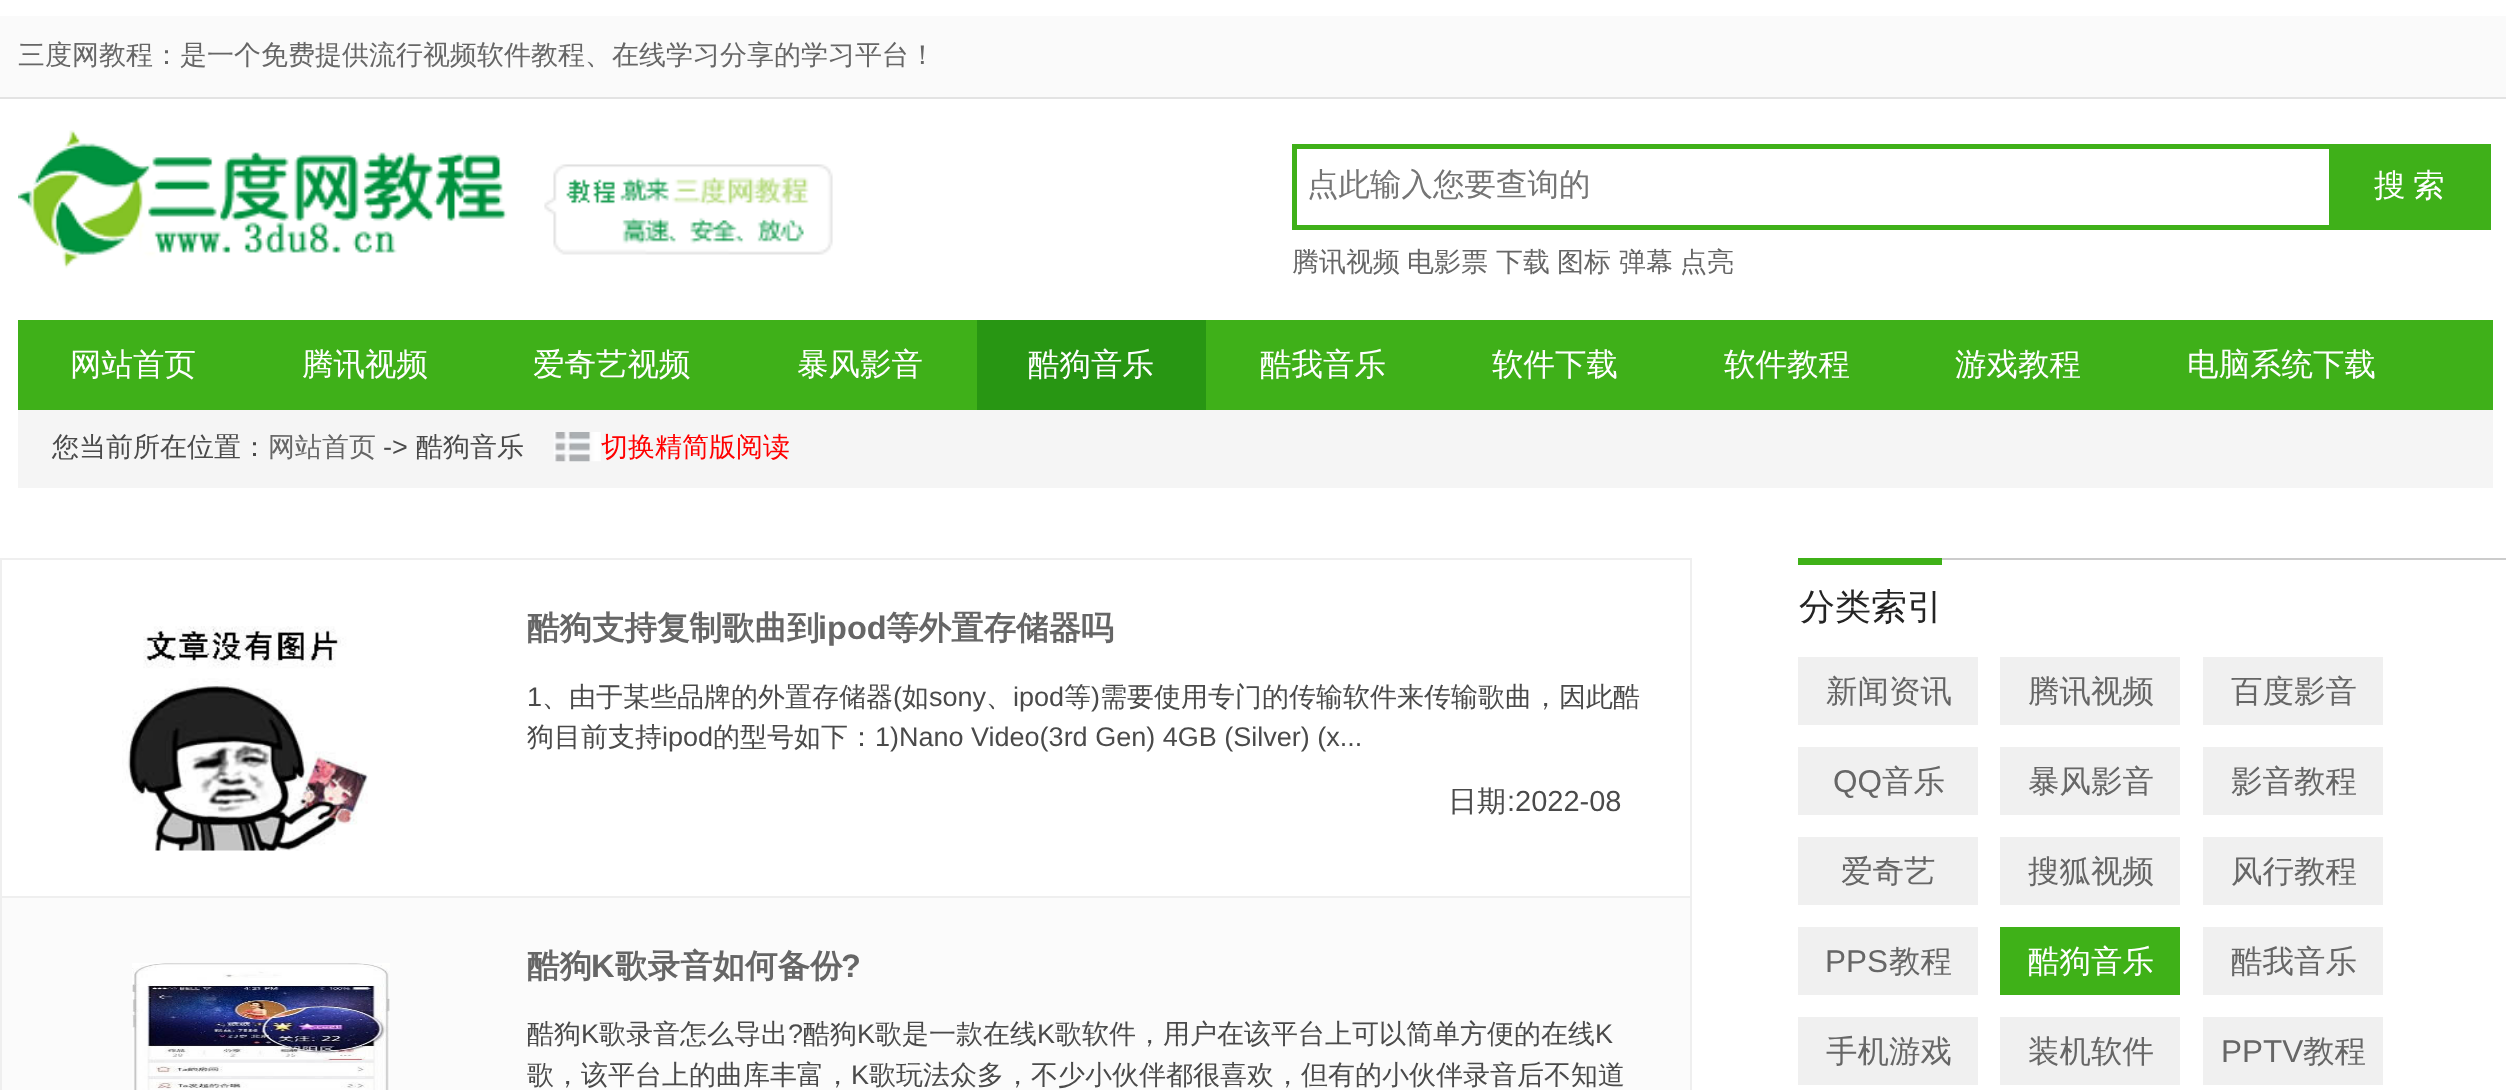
<svg xmlns="http://www.w3.org/2000/svg" width="2506" height="1090">
<style>
.a{font:500 27px WenQuanYi Zen Hei;fill:#666}
.b{font:500 31.5px WenQuanYi Zen Hei;fill:#757575}
.c{font:500 31.5px WenQuanYi Zen Hei;fill:#fff}
.d{font:500 27px WenQuanYi Zen Hei;fill:#4a4a4a}
.e{font:27px Liberation Sans;fill:#4a4a4a}
.f{font:500 27px WenQuanYi Zen Hei;fill:#f00}
.g{font:bold 32.5px WenQuanYi Zen Hei;fill:#666}
.h{font:bold 32.5px Liberation Sans;fill:#666}
.i{font:500 29px WenQuanYi Zen Hei;fill:#4a4a4a}
.j{font:29px Liberation Sans;fill:#4a4a4a}
.k{font:500 36px WenQuanYi Zen Hei;fill:#242424}
.l{font:500 31.5px WenQuanYi Zen Hei;fill:#666}
.m{font:31.5px Liberation Sans;fill:#666}
</style>
<rect width="100%" height="100%" fill="#fff"/>
<path fill="#fafafa" d="M0 16h2506v81H0z"/>
<path fill="#e3e3e3" d="M0 97h2506v2H0z"/>
<image href="1.png" x="18" y="130" width="489" height="139"/>
<image href="2.png" x="544" y="164" width="289" height="91"/>
<path fill="#3fb019" d="M1292 144h1037v5H1292z"/>
<path fill="#3fb019" d="M1292 225h1037v5H1292z"/>
<path fill="#3fb019" d="M1292 144h5v86H1292z"/>
<path fill="#3fb019" d="M2329 144h162v86H2329z"/>
<path fill="#3fb019" d="M18 320h2475v90H18z"/>
<path fill="#289613" d="M977 320h229v90H977z"/>
<path fill="#f5f5f5" d="M18 410h2475v78H18z"/>
<path fill="none" stroke="#efefef" stroke-width="2" d="M1 559h1690v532H1z"/>
<image href="4.png" x="122" y="626" width="246" height="225"/>
<path fill="#fbfbfb" d="M2 898h1688v192H2z"/>
<path fill="#efefef" d="M2 896h1688v2H2z"/>
<image href="5.png" x="132" y="963" width="258" height="127"/>
<path fill="#ccc" d="M1942 558h564v2H1942z"/>
<path fill="#3fb118" d="M1798 558h144v7H1798z"/>
<path fill="#f0f0f0" d="M1798 657h180v68H1798z"/>
<path fill="#f0f0f0" d="M2000 657h180v68H2000z"/>
<path fill="#f0f0f0" d="M2203 657h180v68H2203z"/>
<path fill="#f0f0f0" d="M1798 747h180v68H1798z"/>
<path fill="#f0f0f0" d="M2000 747h180v68H2000z"/>
<path fill="#f0f0f0" d="M2203 747h180v68H2203z"/>
<path fill="#f0f0f0" d="M1798 837h180v68H1798z"/>
<path fill="#f0f0f0" d="M2000 837h180v68H2000z"/>
<path fill="#f0f0f0" d="M2203 837h180v68H2203z"/>
<path fill="#f0f0f0" d="M1798 927h180v68H1798z"/>
<path fill="#3fb118" d="M2000 927h180v68H2000z"/>
<path fill="#f0f0f0" d="M2203 927h180v68H2203z"/>
<path fill="#f0f0f0" d="M1798 1017h180v68H1798z"/>
<path fill="#f0f0f0" d="M2000 1017h180v68H2000z"/>
<path fill="#f0f0f0" d="M2203 1017h180v68H2203z"/>
<text class="a" x="18" y="64">三度网教程：是一个免费提供流行视频软件教程、在线学习分享的学习平台！</text>
<text class="b" x="1307" y="195">点此输入您要查询的</text>
<text class="c" x="2374" y="196" word-spacing="-2">搜 索</text>
<text class="a" x="1292" y="271">腾讯视频</text>
<text class="a" x="1407" y="271">电影票</text>
<text class="a" x="1496" y="271">下载</text>
<text class="a" x="1557" y="271">图标</text>
<text class="a" x="1619" y="271">弹幕</text>
<text class="a" x="1680" y="271">点亮</text>
<text class="c" x="70" y="375">网站首页</text>
<text class="c" x="302" y="375">腾讯视频</text>
<text class="c" x="533" y="375">爱奇艺视频</text>
<text class="c" x="797" y="375">暴风影音</text>
<text class="c" x="1028" y="375">酷狗音乐</text>
<text class="c" x="1260" y="375">酷我音乐</text>
<text class="c" x="1492" y="375">软件下载</text>
<text class="c" x="1724" y="375">软件教程</text>
<text class="c" x="1955" y="375">游戏教程</text>
<text class="c" x="2187" y="375">电脑系统下载</text>
<text class="d" x="52" y="456">您当前所在位置：</text>
<text class="a" x="268" y="456">网站首页</text>
<text class="e" x="383" y="456">-&gt;</text>
<text class="d" x="416" y="456">酷狗音乐</text>
<text class="f" x="601" y="456">切换精简版阅读</text>
<image href="3.png" x="553" y="432" width="48" height="30"/>
<text class="g" x="527" y="639">酷狗支持复制歌曲到</text>
<text class="h" x="818" y="639">ipod</text>
<text class="g" x="886" y="639">等外置存储器吗</text>
<text class="e" x="527" y="706">1</text>
<text class="d" x="542" y="706">、由于某些品牌的外置存储器</text>
<text class="e" x="893" y="706">(</text>
<text class="d" x="902" y="706">如</text>
<text class="e" x="929" y="706">sony</text>
<text class="d" x="986" y="706">、</text>
<text class="e" x="1013" y="706">ipod</text>
<text class="d" x="1064" y="706">等</text>
<text class="e" x="1091" y="706">)</text>
<text class="d" x="1100" y="706">需要使用专门的传输软件来传输歌曲，因此酷</text>
<text class="d" x="527" y="746">狗目前支持</text>
<text class="e" x="662" y="746">ipod</text>
<text class="d" x="713" y="746">的型号如下：</text>
<text class="e" x="875" y="746">1)Nano Video(3rd Gen) 4GB (Silver) (x...</text>
<text class="i" x="1448" y="811">日期</text>
<text class="j" x="1507" y="811">:2022-08</text>
<text class="g" x="527" y="977">酷狗</text>
<text class="h" x="591" y="977">K</text>
<text class="g" x="615" y="977">歌录音如何备份</text>
<text class="h" x="841" y="977">?</text>
<text class="d" x="527" y="1043">酷狗</text>
<text class="e" x="581" y="1043">K</text>
<text class="d" x="599" y="1043">歌录音怎么导出</text>
<text class="e" x="788" y="1043">?</text>
<text class="d" x="803" y="1043">酷狗</text>
<text class="e" x="857" y="1043">K</text>
<text class="d" x="875" y="1043">歌是一款在线</text>
<text class="e" x="1037" y="1043">K</text>
<text class="d" x="1055" y="1043">歌软件，用户在该平台上可以简单方便的在线</text>
<text class="e" x="1595" y="1043">K</text>
<text class="d" x="527" y="1084">歌，该平台上的曲库丰富，</text>
<text class="e" x="851" y="1084">K</text>
<text class="d" x="869" y="1084">歌玩法众多，不少小伙伴都很喜欢，但有的小伙伴录音后不知道</text>
<text class="k" x="1799" y="619">分类索引</text>
<text class="l" x="1826" y="702">新闻资讯</text>
<text class="l" x="2028" y="702">腾讯视频</text>
<text class="l" x="2231" y="702">百度影音</text>
<text class="m" x="1833" y="792">QQ</text>
<text class="l" x="1882" y="792">音乐</text>
<text class="l" x="2028" y="792">暴风影音</text>
<text class="l" x="2231" y="792">影音教程</text>
<text class="l" x="1841" y="882">爱奇艺</text>
<text class="l" x="2028" y="882">搜狐视频</text>
<text class="l" x="2231" y="882">风行教程</text>
<text class="m" x="1825" y="972">PPS</text>
<text class="l" x="1889" y="972">教程</text>
<text class="c" x="2028" y="972">酷狗音乐</text>
<text class="l" x="2231" y="972">酷我音乐</text>
<text class="l" x="1826" y="1062">手机游戏</text>
<text class="l" x="2028" y="1062">装机软件</text>
<text class="m" x="2221" y="1062">PPTV</text>
<text class="l" x="2303" y="1062">教程</text>
</svg>
